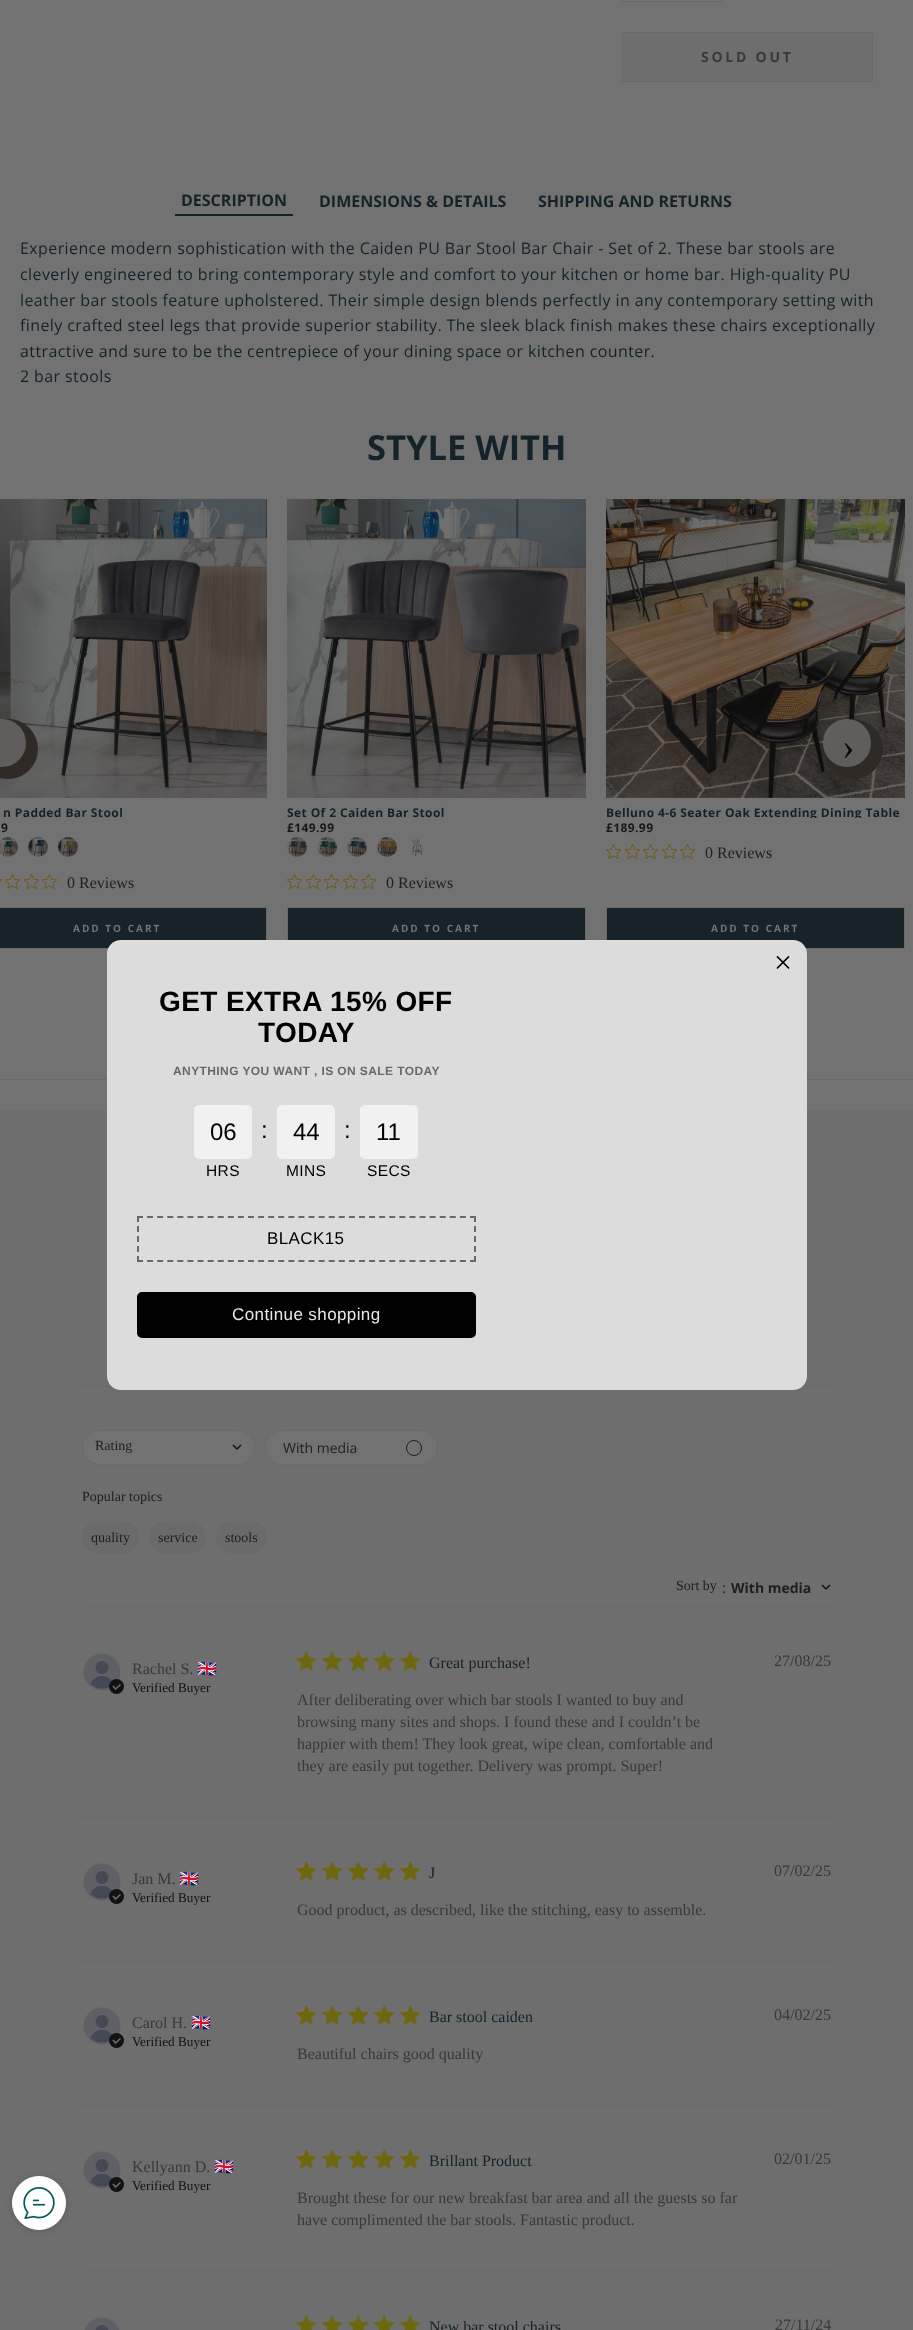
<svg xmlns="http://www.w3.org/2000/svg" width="913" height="2330">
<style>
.a{font:bold 14px Open Sans;letter-spacing:2.75px;fill:#393939}
.b{font:bold 16px Open Sans;fill:#14232a}
.c{font:16px Open Sans;letter-spacing:0.4px;fill:#14232a}
.d{font:bold 34.5px Open Sans;fill:#14232a}
.e{font:38px Liberation Serif;fill:#0c0c0c}
.f{font:bold 12px Open Sans;letter-spacing:0.4px;fill:#14232a}
.g{font:bold 12px Open Sans;letter-spacing:0.4px;fill:#171818}
.h{font:16px Liberation Serif;fill:#22201f}
.i{font:bold 10px Open Sans;letter-spacing:2px;fill:#727272}
.j{font:14px Liberation Serif;fill:#22201f}
.k{font:14px Open Sans;fill:#22201f}
.l{font:bold 14px Open Sans;fill:#22201f}
.m{font:16px Liberation Serif;fill:#393939}
.n{font:16px Noto Color Emoji;fill:#393939}
.o{font:13.25px Liberation Serif;fill:#121213}
.p{font:16px Liberation Serif;fill:#14232a}
.q{font:bold 28px Liberation Sans;letter-spacing:0.4px;fill:#000}
.r{font:bold 12px Liberation Sans;letter-spacing:0.4px;fill:#696969}
.s{font:24px Liberation Sans;fill:#000}
.t{font:15.5px Liberation Sans;letter-spacing:0.4px;fill:#000}
.u{font:24px Liberation Sans;letter-spacing:0.4px;fill:#000}
.v{font:17px Liberation Sans;letter-spacing:0.4px;fill:#000}
.w{font:17px Liberation Sans;letter-spacing:0.4px;fill:#e8e8e8}
</style>
<defs>
<clipPath id="clip1"><path d="M606 803h299v15H606z"/></clipPath>
</defs>
<rect width="100%" height="100%" fill="#727272"/>
<path fill="none" stroke="#696966" d="M622.5 -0.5h99v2H622.5z"/>
<path fill="#6d6d6d" d="M642 0h1v2H642z"/>
<path fill="#6d6d6d" d="M701 0h1v2H701z"/>
<path fill="#6e6e6e" stroke="#696966" d="M622.5 32.5h250v49H622.5z"/>
<path fill="#14232a" d="M175 214h118v2H175z"/>
<image href="1.png" x="0" y="499" width="267" height="299"/>
<circle fill="#302a26" cx="8" cy="749" r="30"/>
<circle fill="#727272bd" cx="2" cy="743" r="24"/>
<image href="13.png" x="606" y="499" width="299" height="299"/>
<circle fill="#302a26" cx="853" cy="749" r="30"/>
<circle fill="#727272bd" cx="847" cy="743" r="24"/>
<image href="2.png" x="0" y="837" width="18" height="20"/>
<image href="3.png" x="28" y="837" width="20" height="20"/>
<image href="4.png" x="58" y="837" width="20" height="20"/>
<image href="5.png" x="0" y="879" width="2" height="3"/>
<image href="6.png" x="5" y="874" width="15" height="15"/>
<image href="6.png" x="24" y="874" width="15" height="15"/>
<image href="6.png" x="42" y="874" width="15" height="15"/>
<path fill="#182229" stroke="#696966" d="M-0.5 907.5h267v41H-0.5z"/>
<image href="7.png" x="287" y="499" width="299" height="299"/>
<image href="8.png" x="287" y="837" width="20" height="20"/>
<image href="9.png" x="317" y="837" width="20" height="20"/>
<image href="10.png" x="347" y="837" width="20" height="20"/>
<image href="11.png" x="377" y="837" width="20" height="20"/>
<image href="12.png" x="412" y="839" width="10" height="18"/>
<image href="6.png" x="287" y="874" width="15" height="15"/>
<image href="6.png" x="306" y="874" width="15" height="15"/>
<image href="6.png" x="324" y="874" width="15" height="15"/>
<image href="6.png" x="343" y="874" width="15" height="15"/>
<image href="6.png" x="361" y="874" width="15" height="15"/>
<path fill="#182229" d="M288 908h297v32H288z"/>
<path fill="none" stroke="#696966" d="M287.5 907.5h298v41H287.5z"/>
<image href="6.png" x="606" y="844" width="15" height="15"/>
<image href="6.png" x="625" y="844" width="15" height="15"/>
<image href="6.png" x="643" y="844" width="15" height="15"/>
<image href="6.png" x="662" y="844" width="15" height="15"/>
<image href="6.png" x="680" y="844" width="15" height="15"/>
<path fill="#182229" stroke="#696966" d="M606.5 907.5h298v41H606.5z"/>
<path fill="#696966" d="M0 1079h913v1H0z"/>
<path fill="#6e6e6e" d="M0 1110h913v1220H0z"/>
<image href="14.png" x="82" y="1385" width="749" height="2"/>
<rect fill="#727272" stroke="#6a6a6a" x="82.5" y="1430.5" width="172" height="34" rx="17"/>
<path fill="none" stroke="#121213" stroke-width="1.5" d="M233 1445l4 4l4-4"/>
<rect fill="#727272" stroke="#6a6a6a" x="265.5" y="1430.5" width="172" height="34" rx="17"/>
<circle fill="none" stroke="#22201f" cx="414" cy="1448" r="7.5"/>
<rect fill="#6a6a6a" x="82" y="1521" width="57" height="33" rx="16.5"/>
<rect fill="#6a6a6a" x="149" y="1521" width="57" height="33" rx="16.5"/>
<rect fill="#6a6a6a" x="216" y="1521" width="51" height="33" rx="16.5"/>
<path fill="none" stroke="#121213" stroke-width="1.5" d="M822 1585l4 4l4-4"/>
<image href="14.png" x="82" y="1607" width="749" height="2"/>
<circle fill="#5e6066" cx="102" cy="1672" r="18.5"/>
<circle fill="#444955" cx="102" cy="1667.5" r="6.5"/>
<path fill="#444955" d="M102 1676c5.5 0 10 3.5 11.5 8c-6 6-17 6-23 0c1.5-4.5 6-8 11.5-8z"/>
<circle fill="#121213" cx="116.5" cy="1686.5" r="7.5"/>
<path fill="none" stroke="#727272" stroke-width="1.5" d="M113 1686l2.5 3l5-4.5"/>
<image href="15.png" x="295" y="1650" width="21" height="22"/>
<image href="15.png" x="321" y="1650" width="21" height="22"/>
<image href="15.png" x="347" y="1650" width="21" height="22"/>
<image href="15.png" x="373" y="1650" width="21" height="22"/>
<image href="15.png" x="399" y="1650" width="21" height="22"/>
<image href="14.png" x="82" y="1817" width="749" height="2"/>
<circle fill="#5e6066" cx="102" cy="1882" r="18.5"/>
<circle fill="#444955" cx="102" cy="1877.5" r="6.5"/>
<path fill="#444955" d="M102 1886c5.5 0 10 3.5 11.5 8c-6 6-17 6-23 0c1.5-4.5 6-8 11.5-8z"/>
<circle fill="#121213" cx="116.5" cy="1896.5" r="7.5"/>
<path fill="none" stroke="#727272" stroke-width="1.5" d="M113 1896l2.5 3l5-4.5"/>
<image href="15.png" x="295" y="1860" width="21" height="22"/>
<image href="15.png" x="321" y="1860" width="21" height="22"/>
<image href="15.png" x="347" y="1860" width="21" height="22"/>
<image href="15.png" x="373" y="1860" width="21" height="22"/>
<image href="15.png" x="399" y="1860" width="21" height="22"/>
<image href="14.png" x="82" y="1961" width="749" height="2"/>
<circle fill="#5e6066" cx="102" cy="2026" r="18.5"/>
<circle fill="#444955" cx="102" cy="2021.5" r="6.5"/>
<path fill="#444955" d="M102 2030c5.5 0 10 3.5 11.5 8c-6 6-17 6-23 0c1.5-4.5 6-8 11.5-8z"/>
<circle fill="#121213" cx="116.5" cy="2040.5" r="7.5"/>
<path fill="none" stroke="#727272" stroke-width="1.5" d="M113 2040l2.5 3l5-4.5"/>
<image href="15.png" x="295" y="2004" width="21" height="22"/>
<image href="15.png" x="321" y="2004" width="21" height="22"/>
<image href="15.png" x="347" y="2004" width="21" height="22"/>
<image href="15.png" x="373" y="2004" width="21" height="22"/>
<image href="15.png" x="399" y="2004" width="21" height="22"/>
<image href="14.png" x="82" y="2105" width="749" height="2"/>
<circle fill="#5e6066" cx="102" cy="2170" r="18.5"/>
<circle fill="#444955" cx="102" cy="2165.5" r="6.5"/>
<path fill="#444955" d="M102 2174c5.5 0 10 3.5 11.5 8c-6 6-17 6-23 0c1.5-4.5 6-8 11.5-8z"/>
<circle fill="#121213" cx="116.5" cy="2184.5" r="7.5"/>
<path fill="none" stroke="#727272" stroke-width="1.5" d="M113 2184l2.5 3l5-4.5"/>
<image href="15.png" x="295" y="2148" width="21" height="22"/>
<image href="15.png" x="321" y="2148" width="21" height="22"/>
<image href="15.png" x="347" y="2148" width="21" height="22"/>
<image href="15.png" x="373" y="2148" width="21" height="22"/>
<image href="15.png" x="399" y="2148" width="21" height="22"/>
<image href="14.png" x="82" y="2271" width="749" height="2"/>
<circle fill="#5e6066" cx="102" cy="2336" r="18.5"/>
<circle fill="#444955" cx="102" cy="2331.5" r="6.5"/>
<image href="16.png" x="295" y="2314" width="21" height="16"/>
<image href="16.png" x="321" y="2314" width="21" height="16"/>
<image href="16.png" x="347" y="2314" width="21" height="16"/>
<image href="16.png" x="373" y="2314" width="21" height="16"/>
<image href="16.png" x="399" y="2314" width="21" height="16"/>
<rect fill="#dcdcdc" x="107" y="940" width="700" height="450" rx="14"/>
<image href="17.png" x="776" y="956" width="14" height="13"/>
<rect fill="#f1f1f1" stroke="#f1f1f1" stroke-width="2" x="195" y="1106" width="56" height="52" rx="4"/>
<rect fill="#f1f1f1" stroke="#f1f1f1" stroke-width="2" x="278" y="1106" width="56" height="52" rx="4"/>
<rect fill="#f1f1f1" stroke="#f1f1f1" stroke-width="2" x="361" y="1106" width="56" height="52" rx="4"/>
<path fill="none" stroke="#696969" stroke-width="2" stroke-dasharray="6 4.09" d="M137 1217h339"/>
<path fill="none" stroke="#696969" stroke-width="2" stroke-dasharray="6 4" d="M475 1216v46"/>
<path fill="none" stroke="#696969" stroke-width="2" stroke-dasharray="6 4.09" d="M137 1261h339"/>
<path fill="none" stroke="#696969" stroke-width="2" stroke-dasharray="6 4" d="M138 1216v46"/>
<rect fill="#000" stroke="#000" stroke-width="2" x="138" y="1293" width="337" height="44" rx="4"/>
<rect fill="#1b1b1b33" filter="blur(3px)" x="12" y="2177" width="54" height="54" rx="27"/>
<circle fill="#fff" stroke="#fff" cx="39" cy="2203" r="26.5"/>
<image href="18.png" x="23" y="2187" width="32" height="32"/>
<text class="a" x="701" y="62">SOLD OUT</text>
<text class="b" x="181" y="206">DESCRIPTION</text>
<text class="b" x="319" y="207">DIMENSIONS &amp; DETAILS</text>
<text class="b" x="538" y="207">SHIPPING AND RETURNS</text>
<text class="c" x="20" y="254">Experience modern sophistication with the Caiden PU Bar Stool Bar Chair - Set of 2. These bar stools are</text>
<text class="c" x="20" y="280">cleverly engineered to bring contemporary style and comfort to your kitchen or home bar. High-quality PU</text>
<text class="c" x="20" y="306">leather bar stools feature upholstered. Their simple design blends perfectly in any contemporary setting with</text>
<text class="c" x="20" y="331">finely crafted steel legs that provide superior stability. The sleek black finish makes these chairs exceptionally</text>
<text class="c" x="20" y="357">attractive and sure to be the centrepiece of your dining space or kitchen counter.</text>
<text class="c" x="20" y="382">2 bar stools</text>
<text class="d" x="367" y="460">STYLE WITH</text>
<text class="e" x="842" y="759">›</text>
<text class="f" x="3" y="817">n Padded Bar Stool</text>
<text class="g" x="1" y="832">9</text>
<text class="h" x="67" y="888">0 Reviews</text>
<text class="i" x="73" y="932">ADD TO CART</text>
<text class="f" x="287" y="817">Set Of 2 Caiden Bar Stool</text>
<text class="g" x="287" y="832">£149.99</text>
<text class="h" x="386" y="888">0 Reviews</text>
<text class="i" x="392" y="932">ADD TO CART</text>
<g clip-path="url(#clip1)">
<text class="f" x="606" y="817">Belluno 4-6 Seater Oak Extending Dining Table</text>
</g>
<text class="g" x="606" y="832">£189.99</text>
<text class="h" x="705" y="858">0 Reviews</text>
<text class="i" x="711" y="932">ADD TO CART</text>
<text class="j" x="95" y="1450">Rating</text>
<text class="k" x="283" y="1453">With media</text>
<text class="j" x="82" y="1501">Popular topics</text>
<text class="j" x="91" y="1542">quality</text>
<text class="j" x="158" y="1542">service</text>
<text class="j" x="225" y="1542">stools</text>
<text class="j" x="676" y="1590">Sort by</text>
<text class="k" x="722" y="1593">:</text>
<text class="l" x="731" y="1593">With media</text>
<text class="m" x="132" y="1674">Rachel S.</text>
<text class="n" x="197" y="1674">🇬🇧</text>
<text class="o" x="132" y="1692">Verified Buyer</text>
<text class="p" x="429" y="1668">Great purchase!</text>
<text class="m" x="297" y="1705">After deliberating over which bar stools I wanted to buy and</text>
<text class="m" x="297" y="1727">browsing many sites and shops. I found these and I couldn’t be</text>
<text class="m" x="297" y="1749">happier with them! They look great, wipe clean, comfortable and</text>
<text class="m" x="297" y="1771">they are easily put together. Delivery was prompt. Super!</text>
<text class="m" x="774" y="1666">27/08/25</text>
<text class="m" x="132" y="1884">Jan M.</text>
<text class="n" x="179" y="1884">🇬🇧</text>
<text class="o" x="132" y="1902">Verified Buyer</text>
<text class="p" x="429" y="1878">J</text>
<text class="m" x="297" y="1915">Good product, as described, like the stitching, easy to assemble.</text>
<text class="m" x="774" y="1876">07/02/25</text>
<text class="m" x="132" y="2028">Carol H.</text>
<text class="n" x="191" y="2028">🇬🇧</text>
<text class="o" x="132" y="2046">Verified Buyer</text>
<text class="p" x="429" y="2022">Bar stool caiden</text>
<text class="m" x="297" y="2059">Beautiful chairs good quality</text>
<text class="m" x="774" y="2020">04/02/25</text>
<text class="m" x="132" y="2172">Kellyann D.</text>
<text class="n" x="214" y="2172">🇬🇧</text>
<text class="o" x="132" y="2190">Verified Buyer</text>
<text class="p" x="429" y="2166">Brillant Product</text>
<text class="m" x="297" y="2203">Brought these for our new breakfast bar area and all the guests so far</text>
<text class="m" x="297" y="2225">have complimented the bar stools. Fantastic product.</text>
<text class="m" x="774" y="2164">02/01/25</text>
<text class="p" x="429" y="2332">New bar stool chairs</text>
<text class="m" x="775" y="2330">27/11/24</text>
<text class="q" x="159" y="1011">GET EXTRA 15% OFF</text>
<text class="q" x="258" y="1042">TODAY</text>
<text class="r" x="173" y="1075">ANYTHING YOU WANT , IS ON SALE TODAY</text>
<text class="s" x="210" y="1140">06</text>
<text class="t" x="206" y="1176">HRS</text>
<text class="u" x="261" y="1138">:</text>
<text class="s" x="293" y="1140">44</text>
<text class="t" x="286" y="1176">MINS</text>
<text class="u" x="344" y="1138">:</text>
<text class="s" x="376" y="1140">11</text>
<text class="t" x="367" y="1176">SECS</text>
<text class="v" x="267" y="1244">BLACK15</text>
<text class="w" x="232" y="1320">Continue shopping</text>
</svg>
